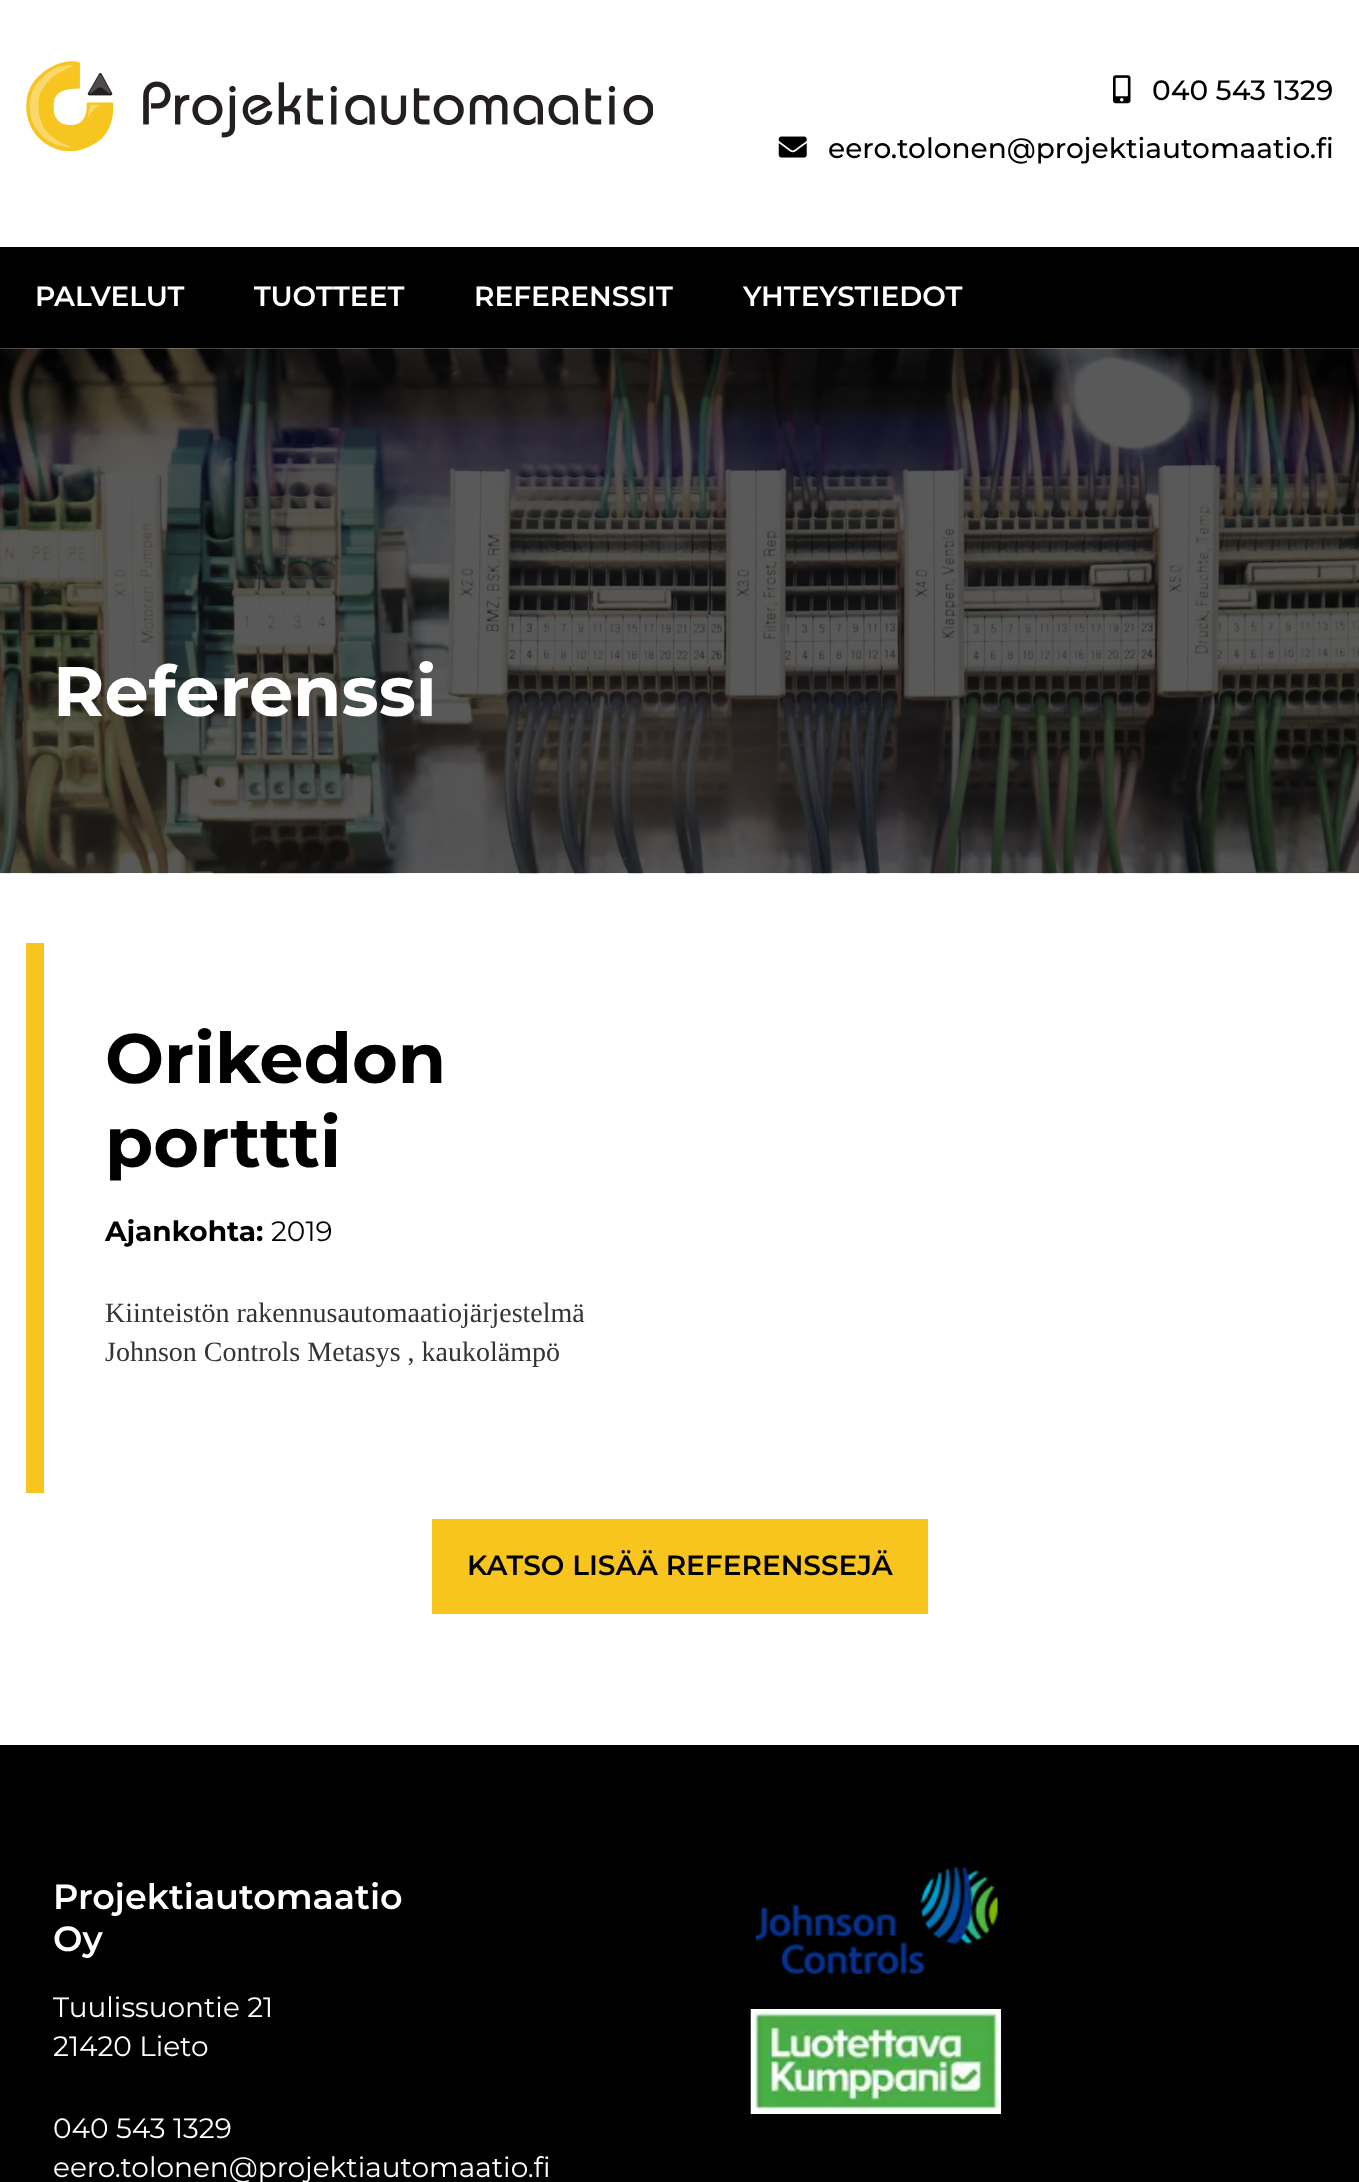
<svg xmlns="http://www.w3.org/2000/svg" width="1359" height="2182">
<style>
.a{font:500 28px Montserrat;fill:#000}
.b{font:600 28px Montserrat;fill:#fff}
.c{font:bold 70px Montserrat;fill:#fff}
.d{font:bold 70px Montserrat;fill:#000}
.e{font:bold 28px Montserrat;fill:#000}
.f{font:28px Montserrat;fill:#000}
.g{font:28px Liberation Serif;fill:#333}
.h{font:600 28px Montserrat;fill:#000}
.i{font:600 35px Montserrat;fill:#fff}
.j{font:28px Montserrat;fill:#fff}
</style>
<rect width="100%" height="100%" fill="#fff"/>
<image href="1.png" x="26" y="61" width="627" height="90"/>
<image href="2.png" x="1113" y="75" width="18" height="29"/>
<image href="3.png" x="778" y="136" width="29" height="22"/>
<path fill="#000" d="M0 247h1359v101H0z"/>
<image href="4.png" x="0" y="348" width="1359" height="526"/>
<path fill="#f7c51e" d="M26 943h18v550H26z"/>
<path fill="#f7c51e" d="M432 1519h496v95H432z"/>
<path fill="#000" d="M0 1745h1359v437H0z"/>
<image href="5.png" x="756" y="1867" width="242" height="107"/>
<image href="6.png" x="750" y="2009" width="251" height="105"/>
<text class="a" x="1152" y="100">040 543 1329</text>
<text class="a" x="828" y="158">eero.tolonen@projektiautomaatio.fi</text>
<text class="b" x="35" y="306">PALVELUT</text>
<text class="b" x="254" y="306">TUOTTEET</text>
<text class="b" x="474" y="306">REFERENSSIT</text>
<text class="b" x="743" y="306">YHTEYSTIEDOT</text>
<text class="c" x="53" y="716">Referenssi</text>
<text class="d" x="105" y="1083">Orikedon</text>
<text class="d" x="105" y="1167">porttti</text>
<text class="e" x="105" y="1241">Ajankohta:</text>
<text class="f" x="271" y="1241">2019</text>
<text class="g" x="105" y="1322">Kiinteistön rakennusautomaatiojärjestelmä</text>
<text class="g" x="105" y="1361">Johnson Controls Metasys , kaukolämpö</text>
<text class="h" x="467" y="1575">KATSO LISÄÄ REFERENSSEJÄ</text>
<text class="i" x="53" y="1909">Projektiautomaatio</text>
<text class="i" x="53" y="1951">Oy</text>
<text class="j" x="53" y="2017">Tuulissuontie 21</text>
<text class="j" x="53" y="2056">21420 Lieto</text>
<text class="j" x="53" y="2138">040 543 1329</text>
<text class="j" x="53" y="2177">eero.tolonen@projektiautomaatio.fi</text>
</svg>
